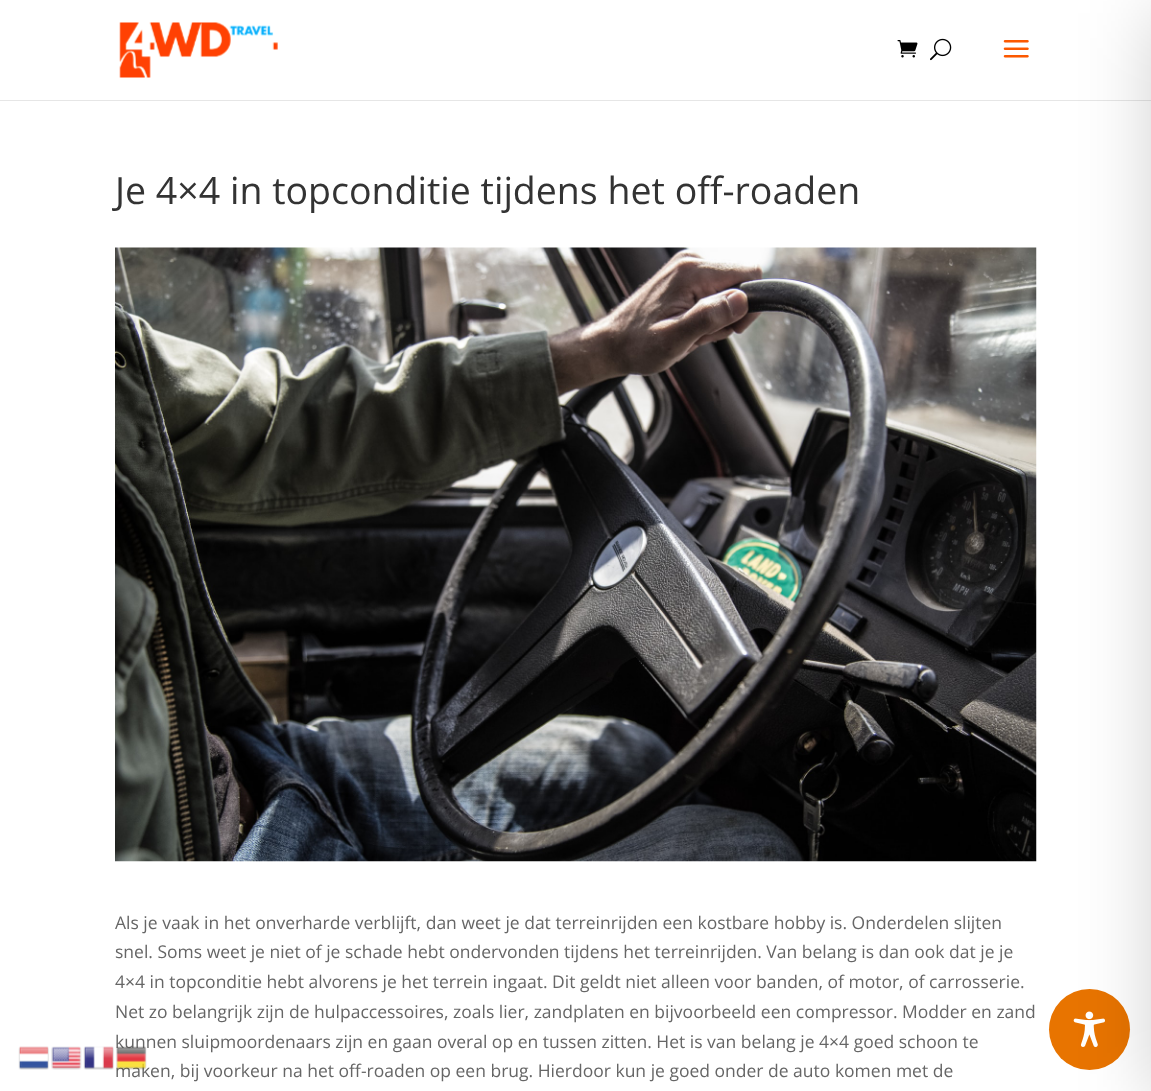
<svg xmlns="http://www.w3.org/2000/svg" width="1151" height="1091">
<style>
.a{font:37.5px Open Sans;fill:#333}
.b{font:17.5px Open Sans;fill:#666}
</style>
<rect width="100%" height="100%" fill="#fff"/>
<path fill="#e6e6e6" d="M0 100h1151v1H0z"/>
<image href="1.png" x="119" y="22" width="159" height="56"/>
<image href="2.png" x="897" y="40" width="21" height="18"/>
<image href="3.png" x="930" y="38" width="22" height="23"/>
<image href="4.png" x="1003" y="40" width="26" height="18"/>
<image href="5.png" x="115" y="247" width="922" height="615"/>
<circle fill="#e87400" cx="1089.5" cy="1029.5" r="40.5"/>
<image href="10.png" x="1073" y="1011" width="32" height="37"/>
<path fill="#00000033" filter="blur(37.5px)" d="M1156 13h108v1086H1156z"/>
<image href="6.png" x="18" y="1046" width="31" height="24"/>
<image href="7.png" x="51" y="1046" width="31" height="24"/>
<image href="8.png" x="83" y="1046" width="31" height="24"/>
<text class="a" x="115" y="204">Je 4×4 in topconditie tijdens het off-roaden</text>
<text class="b" x="115" y="929">Als je vaak in het onverharde verblijft, dan weet je dat terreinrijden een kostbare hobby is. Onderdelen slijten</text>
<text class="b" x="115" y="958">snel. Soms weet je niet of je schade hebt ondervonden tijdens het terreinrijden. Van belang is dan ook dat je je</text>
<text class="b" x="115" y="988">4×4 in topconditie hebt alvorens je het terrein ingaat. Dit geldt niet alleen voor banden, of motor, of carrosserie.</text>
<text class="b" x="115" y="1018">Net zo belangrijk zijn de hulpaccessoires, zoals lier, zandplaten en bijvoorbeeld een compressor. Modder en zand</text>
<text class="b" x="115" y="1048">kunnen sluipmoordenaars zijn en gaan overal op en tussen zitten. Het is van belang je 4×4 goed schoon te</text>
<text class="b" x="115" y="1077">maken, bij voorkeur na het off-roaden op een brug. Hierdoor kun je goed onder de auto komen met de</text>
<image href="9.png" x="116" y="1046" width="31" height="24"/>
</svg>
